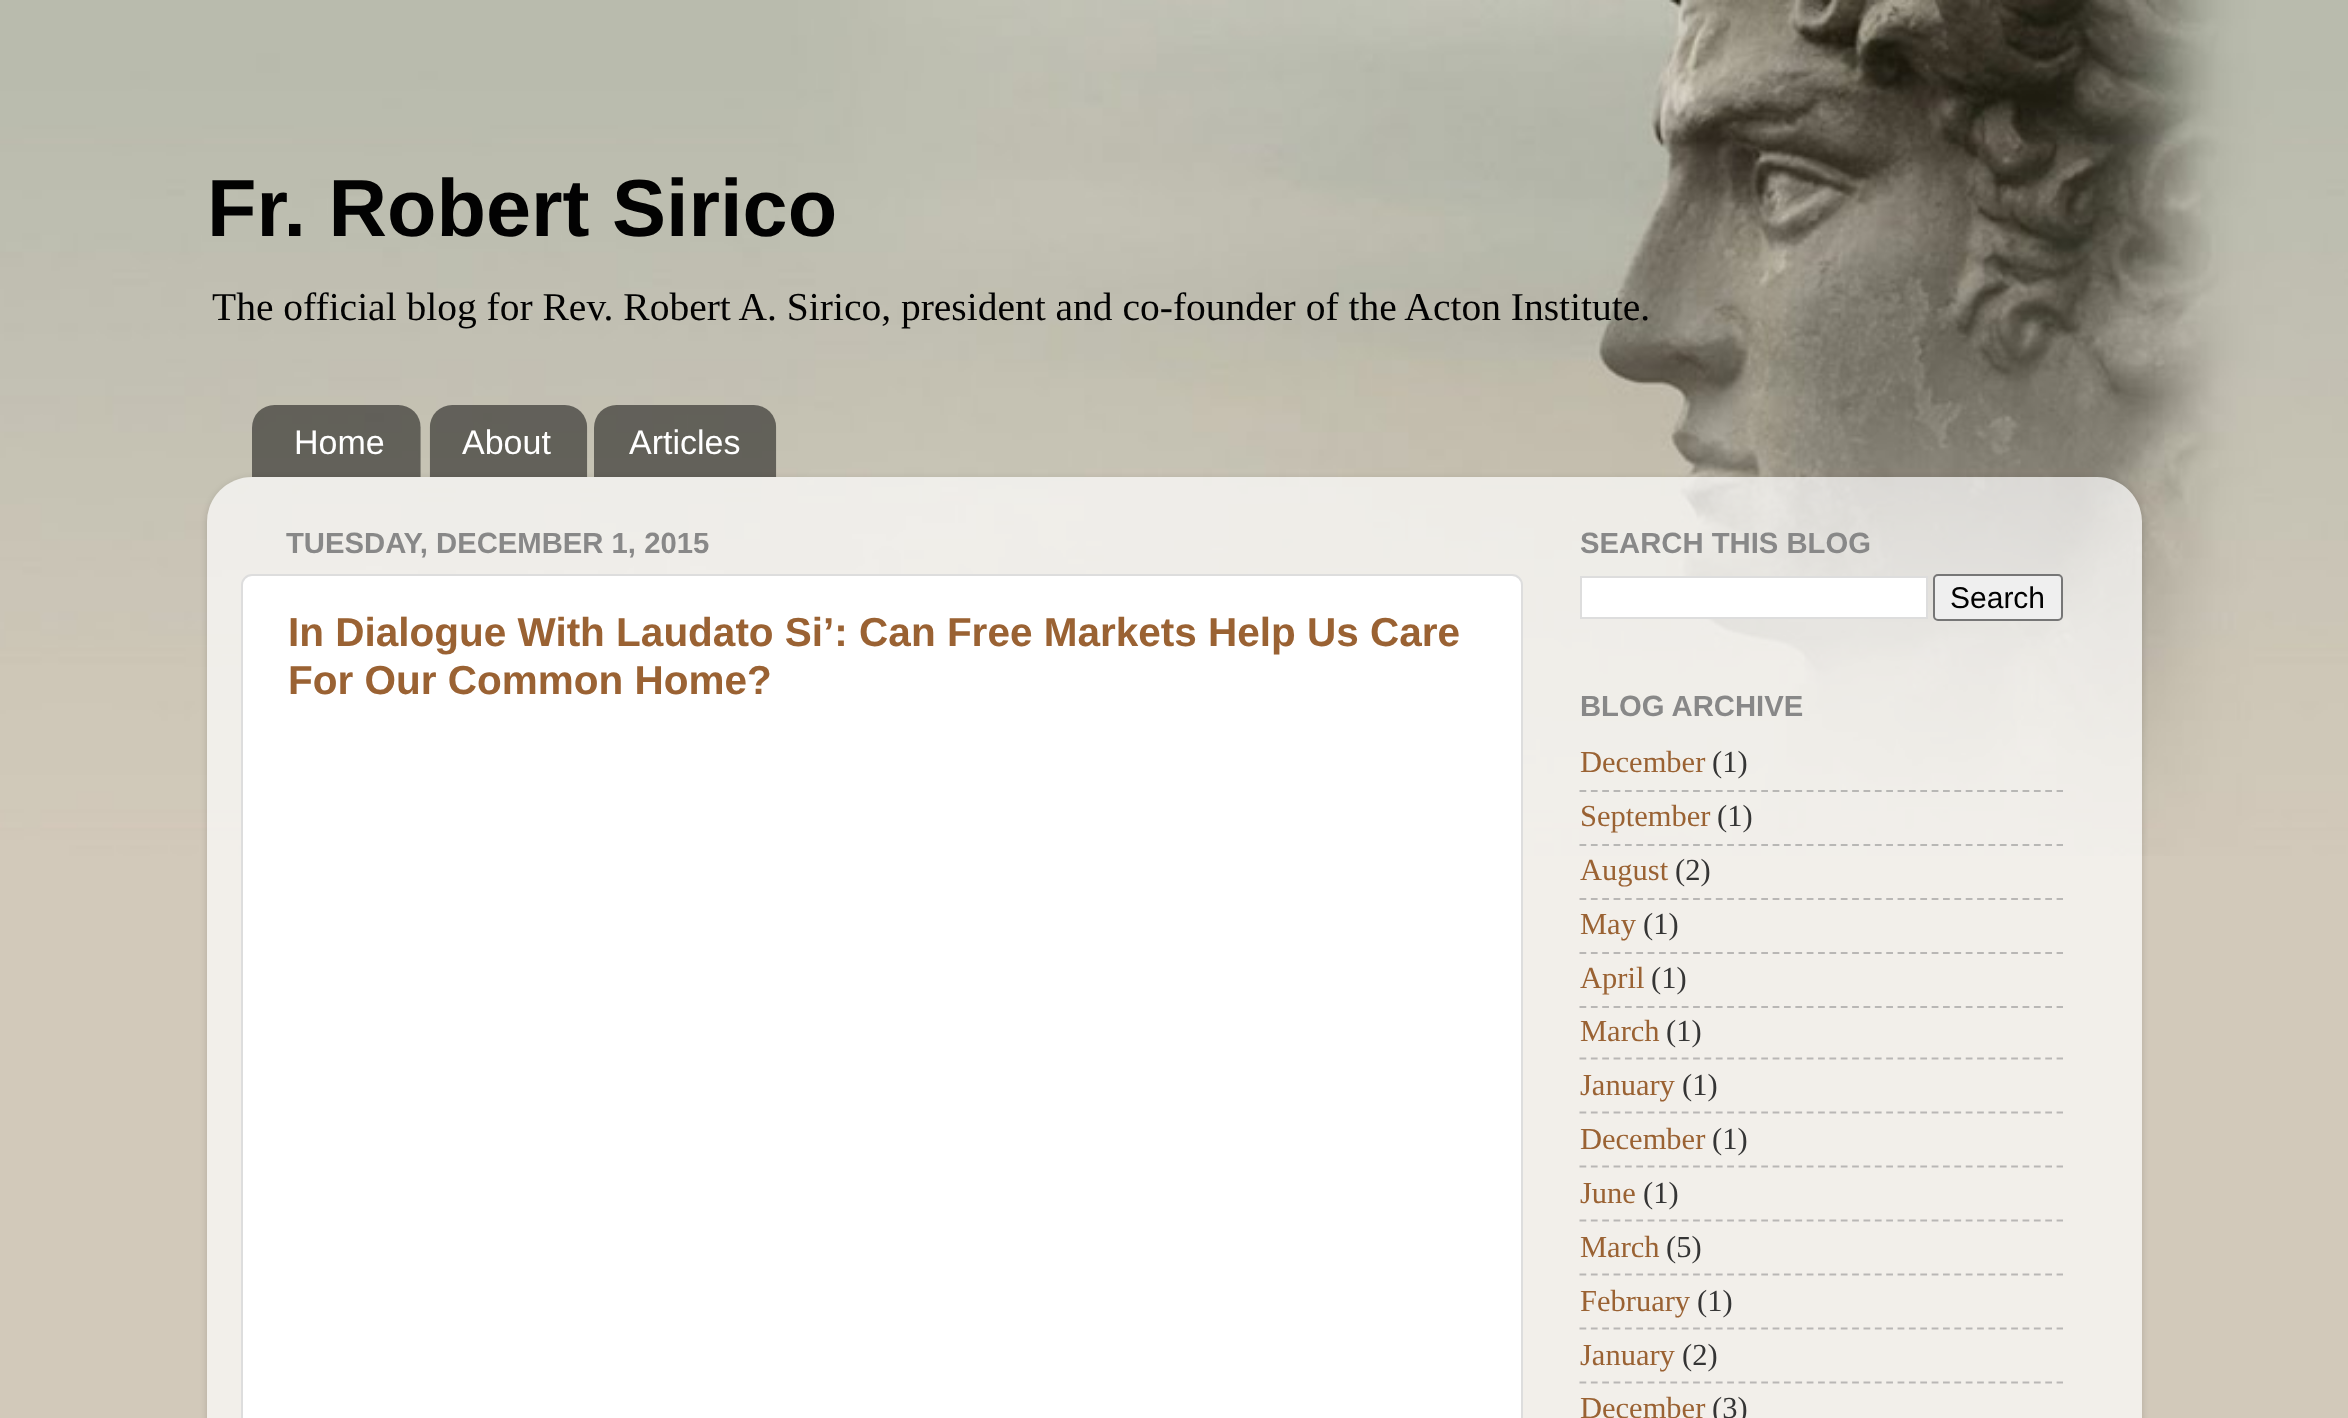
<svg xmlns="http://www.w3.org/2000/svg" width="2348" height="1418">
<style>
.a{font:bold 81px Liberation Sans;fill:#020202}
.b{font:39.5px Liberation Serif;fill:#020202}
.c{font:34px Liberation Sans;fill:#fff}
.d{font:bold 29.25px Liberation Sans;fill:#888}
.e{font:bold 40.5px Liberation Sans;fill:#9a6233}
.f{font:30px Liberation Sans;fill:#020202}
.g{font:30.5px Liberation Serif;fill:#9a6233}
.h{font:30.5px Liberation Serif;fill:#353535}
</style>
<defs>
<clipPath id="clip1"><path d="M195 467h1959v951h-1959zm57 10h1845c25 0 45 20 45 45v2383h-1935v-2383c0-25 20-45 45-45z" clip-rule="evenodd"/></clipPath>
</defs>
<rect width="100%" height="100%" fill="#d2c9ba"/>
<image href="1.png" x="0" y="0" width="2348" height="856"/>
<image href="2.png" x="252" y="405" width="169" height="72"/>
<image href="3.png" x="429" y="405" width="159" height="72"/>
<image href="4.png" x="594" y="405" width="183" height="72"/>
<g clip-path="url(#clip1)">
<rect fill="#00000026" filter="blur(3.5px)" x="207" y="479" width="1935" height="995" rx="45"/>
</g>
<image href="5.png" x="207" y="477" width="1935" height="941"/>
<rect fill="#fff" stroke="#ddd" stroke-width="2" x="242" y="575" width="1280" height="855" rx="10"/>
<path fill="#fff" stroke="#ddd" stroke-width="2" d="M1581 577h346v41H1581z"/>
<rect fill="#efefef" stroke="#767676" stroke-width="2" x="1934" y="575" width="128" height="45" rx="4"/>
<path fill="none" stroke="#b8b7b5" stroke-width="2.2" stroke-dasharray="6.75 4.61" d="M1579.5 791h483.5"/>
<path fill="none" stroke="#b8b7b5" stroke-width="2.2" stroke-dasharray="6.75 4.61" d="M1579.5 845h483.5"/>
<path fill="none" stroke="#b9b7b5" stroke-width="2.2" stroke-dasharray="6.75 4.61" d="M1579.5 899h483.5"/>
<path fill="none" stroke="#b9b7b5" stroke-width="2.2" stroke-dasharray="6.75 4.61" d="M1579.5 953h483.5"/>
<path fill="none" stroke="#b9b7b5" stroke-width="2.2" stroke-dasharray="6.75 4.61" d="M1579.5 1007h483.5"/>
<path fill="none" stroke="#b9b7b5" stroke-width="2.2" stroke-dasharray="6.75 4.61" d="M1579.5 1058.5h483.5"/>
<path fill="none" stroke="#b9b7b5" stroke-width="2.2" stroke-dasharray="6.75 4.61" d="M1579.5 1112.5h483.5"/>
<path fill="none" stroke="#b9b7b5" stroke-width="2.2" stroke-dasharray="6.75 4.61" d="M1579.5 1166.5h483.5"/>
<path fill="none" stroke="#b9b7b5" stroke-width="2.2" stroke-dasharray="6.75 4.61" d="M1579.5 1220.5h483.5"/>
<path fill="none" stroke="#b9b7b5" stroke-width="2.2" stroke-dasharray="6.75 4.61" d="M1579.5 1274.5h483.5"/>
<path fill="none" stroke="#b9b7b5" stroke-width="2.2" stroke-dasharray="6.75 4.61" d="M1579.5 1328.5h483.5"/>
<path fill="none" stroke="#b9b7b5" stroke-width="2.2" stroke-dasharray="6.75 4.61" d="M1579.5 1382.5h483.5"/>
<text class="a" x="207" y="236">Fr. Robert Sirico</text>
<text class="b" x="212" y="320">The official blog for Rev. Robert A. Sirico, president and co-founder of the Acton Institute.</text>
<text class="c" x="294" y="454">Home</text>
<text class="c" x="462" y="454">About</text>
<text class="c" x="629" y="454">Articles</text>
<text class="d" x="286" y="553">TUESDAY, DECEMBER 1, 2015</text>
<text class="e" x="288" y="646">In Dialogue With Laudato Si’: Can Free Markets Help Us Care</text>
<text class="e" x="288" y="694">For Our Common Home?</text>
<text class="d" x="1580" y="553">SEARCH THIS BLOG</text>
<text class="f" x="1950" y="608">Search</text>
<text class="d" x="1580" y="716">BLOG ARCHIVE</text>
<text class="g" x="1580" y="772">December</text>
<text class="h" x="1712" y="772">(1)</text>
<text class="g" x="1580" y="826">September</text>
<text class="h" x="1717" y="826">(1)</text>
<text class="g" x="1580" y="880">August</text>
<text class="h" x="1675" y="880">(2)</text>
<text class="g" x="1580" y="934">May</text>
<text class="h" x="1643" y="934">(1)</text>
<text class="g" x="1580" y="988">April</text>
<text class="h" x="1651" y="988">(1)</text>
<text class="g" x="1580" y="1041">March</text>
<text class="h" x="1666" y="1041">(1)</text>
<text class="g" x="1580" y="1095">January</text>
<text class="h" x="1682" y="1095">(1)</text>
<text class="g" x="1580" y="1149">December</text>
<text class="h" x="1712" y="1149">(1)</text>
<text class="g" x="1580" y="1203">June</text>
<text class="h" x="1643" y="1203">(1)</text>
<text class="g" x="1580" y="1257">March</text>
<text class="h" x="1666" y="1257">(5)</text>
<text class="g" x="1580" y="1311">February</text>
<text class="h" x="1697" y="1311">(1)</text>
<text class="g" x="1580" y="1365">January</text>
<text class="h" x="1682" y="1365">(2)</text>
<text class="g" x="1580" y="1418">December</text>
<text class="h" x="1712" y="1418">(3)</text>
</svg>
